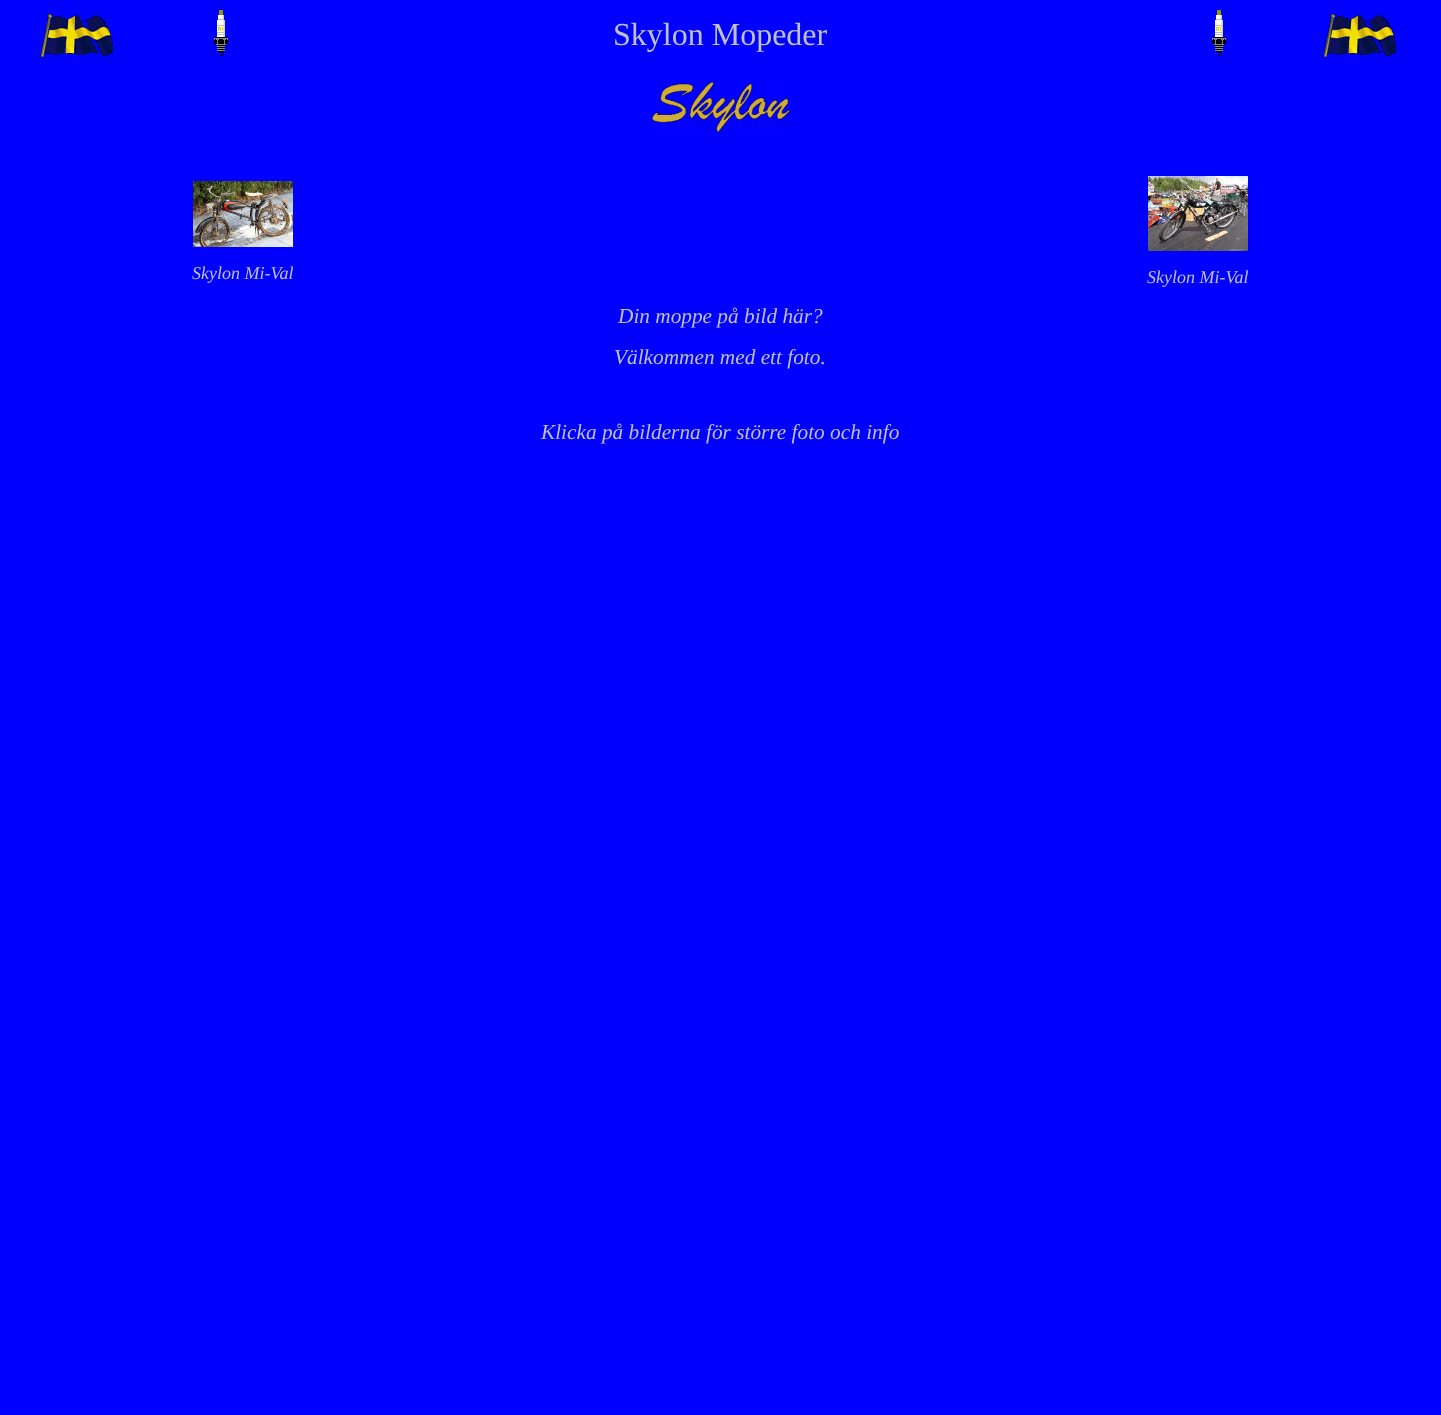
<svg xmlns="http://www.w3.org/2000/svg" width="1441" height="1415">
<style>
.a{font:32px Liberation Serif;fill:#c0c0c0}
.b{font:italic 18px Liberation Serif;fill:#c0c0c0}
.c{font:italic 21.3px Liberation Serif;fill:#c0c0c0}
</style>
<rect width="100%" height="100%" fill="#00f"/>
<image href="1.png" x="40" y="14" width="73" height="44"/>
<image href="2.png" x="214" y="10" width="14" height="46"/>
<image href="2.png" x="1212" y="10" width="14" height="46"/>
<image href="1.png" x="1323" y="14" width="73" height="44"/>
<image href="3.png" x="651" y="81" width="139" height="52"/>
<image href="4.png" x="193" y="181" width="100" height="66"/>
<image href="5.png" x="1148" y="176" width="100" height="75"/>
<text class="a" x="613" y="45">Skylon Mopeder</text>
<text class="b" x="192" y="279">Skylon Mi-Val</text>
<text class="b" x="1147" y="283">Skylon Mi-Val</text>
<text class="c" x="618" y="323">Din moppe på bild här?</text>
<text class="c" x="614" y="364">Välkommen med ett foto.</text>
<text class="c" x="541" y="439">Klicka på bilderna för större foto och info</text>
</svg>
